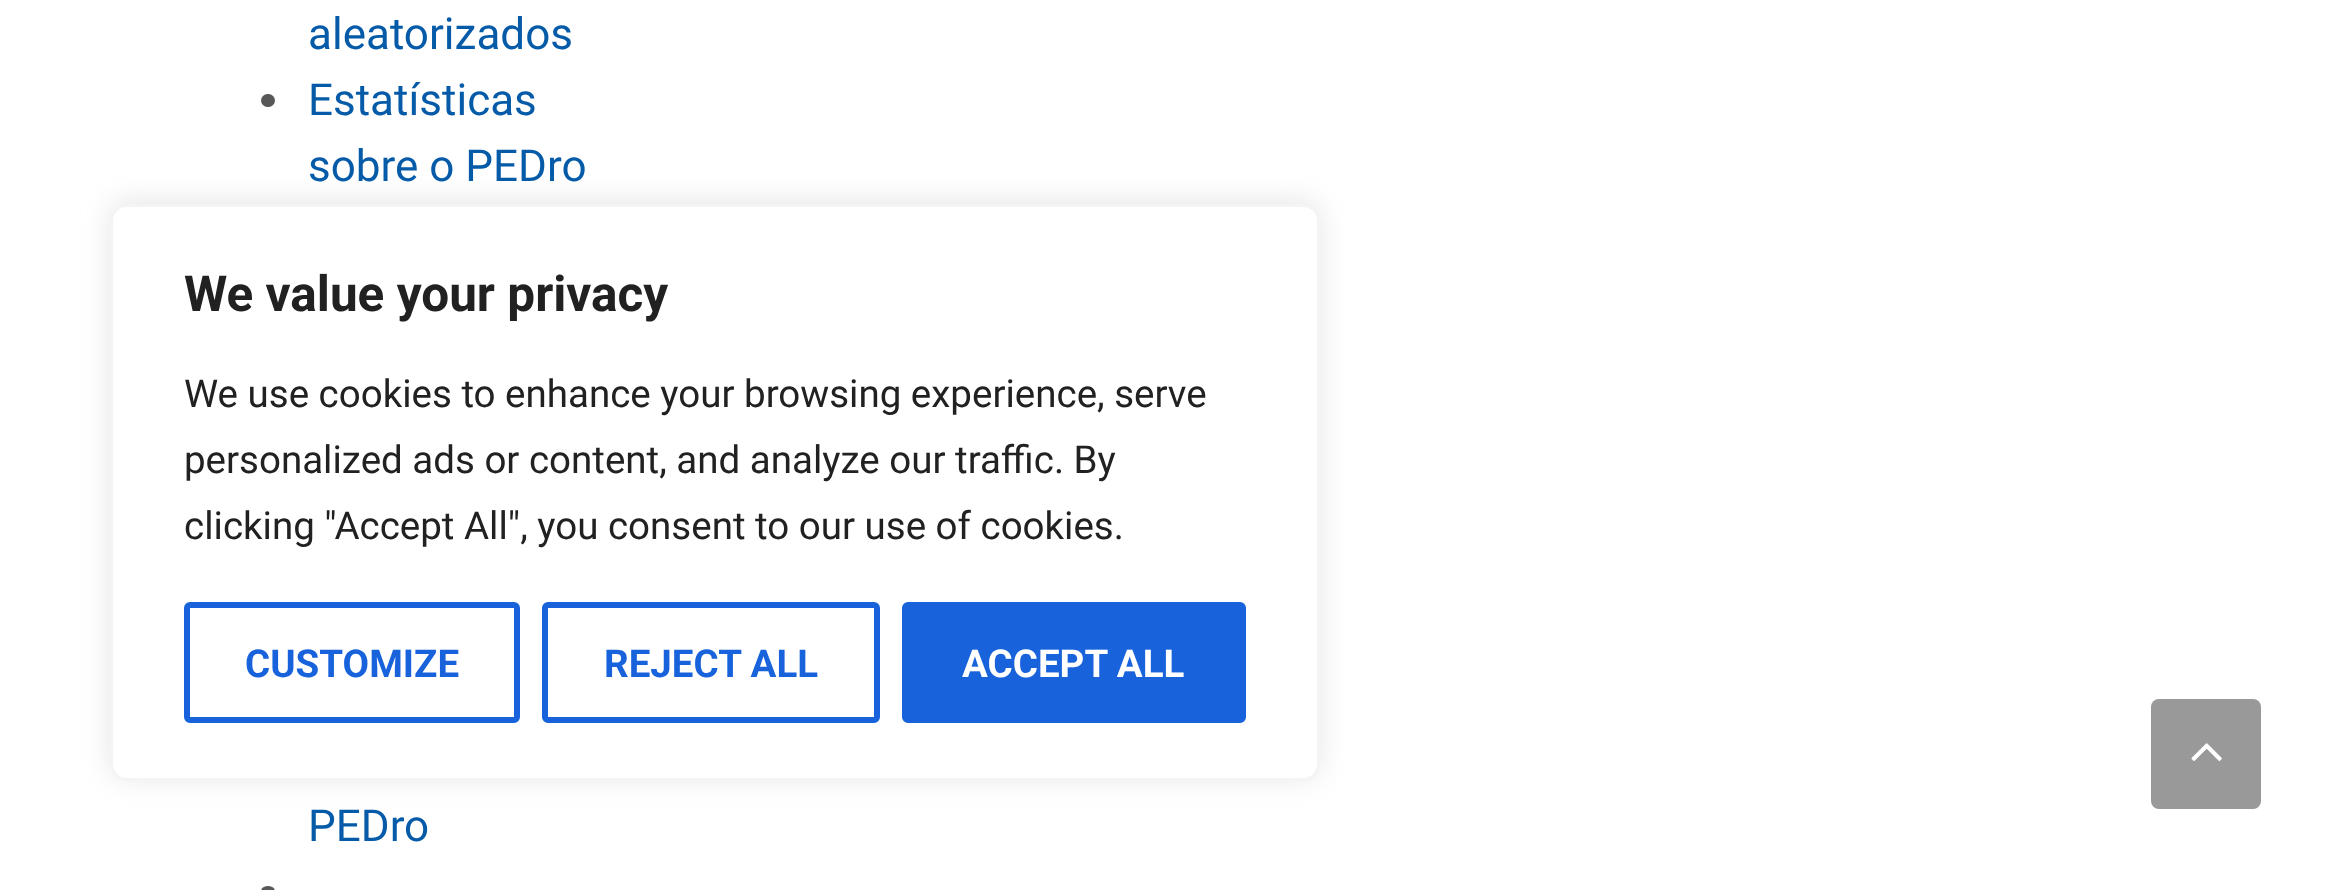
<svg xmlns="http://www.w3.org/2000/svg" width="2343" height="890">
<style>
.a{font:44px Roboto;fill:#065ba8}
.b{font:bold 49.5px Roboto;fill:#212121}
.c{font:38.5px Roboto;fill:#212121}
.d{font:bold 38.5px Roboto;fill:#1863dc}
.e{font:bold 38.5px Roboto;fill:#fff}
</style>
<rect width="100%" height="100%" fill="#fff"/>
<rect fill="#585858" x="261" y="94" width="14" height="13" rx="6.5"/>
<rect fill="#585858" x="261" y="886" width="14" height="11" rx="6.5"/>
<rect fill="#acabab4d" filter="blur(14px)" x="110" y="201" width="1210" height="577" rx="17"/>
<rect fill="#fff" stroke="#f4f4f4" stroke-width="3" x="111.5" y="205.5" width="1207" height="574" rx="15.5"/>
<rect fill="none" stroke="#1863dc" stroke-width="6" x="187" y="605" width="330" height="115" rx="3"/>
<rect fill="none" stroke="#1863dc" stroke-width="6" x="545" y="605" width="332" height="115" rx="3"/>
<rect fill="#1863dc" stroke="#1863dc" stroke-width="6" x="905" y="605" width="338" height="115" rx="3"/>
<rect fill="#999" x="2151" y="699" width="110" height="110" rx="8"/>
<image href="1.png" x="2191" y="743" width="31" height="18"/>
<text class="a" x="308" y="49">aleatorizados</text>
<text class="a" x="308" y="115">Estatísticas</text>
<text class="a" x="308" y="181">sobre o PEDro</text>
<text class="a" x="308" y="841">PEDro</text>
<text class="b" x="184" y="311">We value your privacy</text>
<text class="c" x="184" y="407">We use cookies to enhance your browsing experience, serve</text>
<text class="c" x="184" y="473">personalized ads or content, and analyze our traffic. By</text>
<text class="c" x="184" y="539">clicking "Accept All", you consent to our use of cookies.</text>
<text class="d" x="245" y="677">CUSTOMIZE</text>
<text class="d" x="604" y="677">REJECT ALL</text>
<text class="e" x="962" y="677">ACCEPT ALL</text>
</svg>
